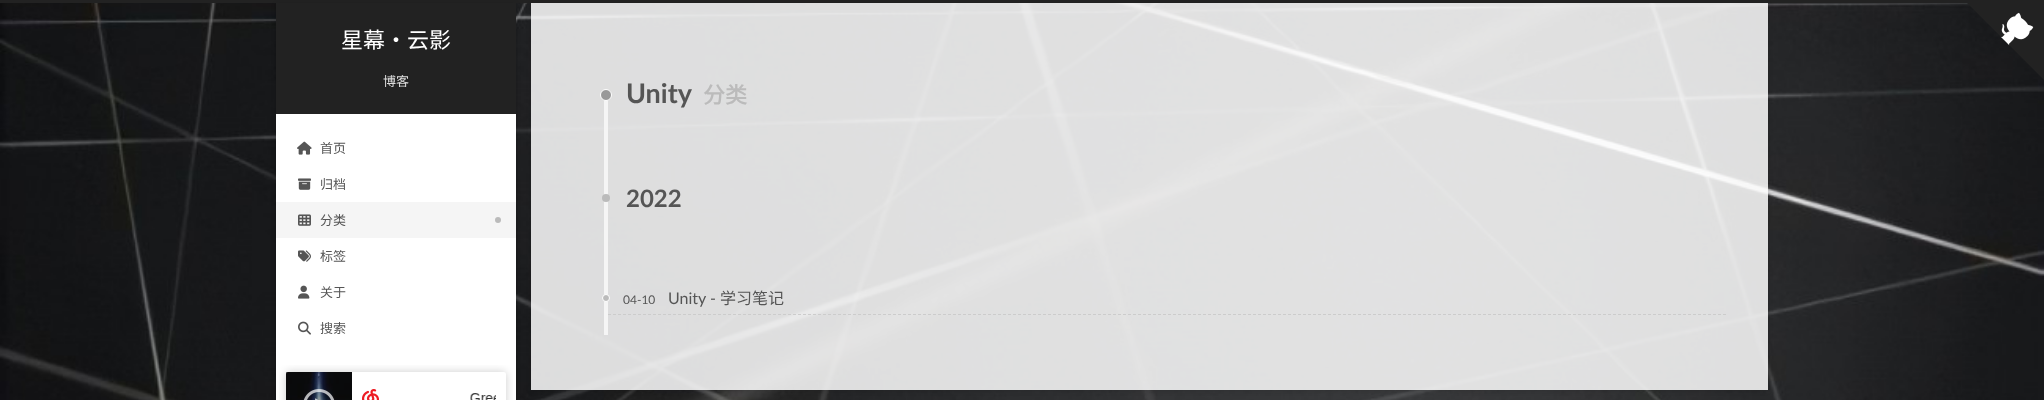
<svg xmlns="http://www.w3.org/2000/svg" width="2044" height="400">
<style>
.a{font:22px Noto Sans CJK SC;fill:#fff}
.b{font:13px Noto Sans CJK SC;fill:#ddd}
.c{font:13px Noto Sans CJK SC;fill:#555}
.d{font:bold 27px Lato;fill:#555}
.e{font:bold 22px Noto Sans CJK SC;fill:#bbb}
.f{font:bold 24px Lato;fill:#555}
.g{font:12px Lato;fill:#555}
.h{font:16px Lato;fill:#555}
.i{font:16px Noto Sans CJK SC;fill:#555}
</style>
<defs>
<clipPath id="clip1"><path d="M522 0h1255v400h-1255zm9 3h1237v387h-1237z" clip-rule="evenodd"/></clipPath>
</defs>
<rect width="100%" height="100%" fill="#fff"/>
<image href="1.png" x="0" y="3" width="2044" height="397"/>
<path fill="#222" d="M0 0h2044v3H0z"/>
<path fill="#0000001f" filter="blur(2.5px)" d="M276 4h240v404H276z"/>
<path fill="#0000001f" filter="blur(1px)" d="M276 5h240v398H276z"/>
<path fill="#fff" d="M276 114h240v286H276z"/>
<path fill="#222" d="M276 3h240v111H276z"/>
<image href="2.png" x="297" y="141" width="15" height="14"/>
<image href="3.png" x="298" y="178" width="13" height="12"/>
<path fill="#f5f5f5" d="M276 202h240v36H276z"/>
<image href="4.png" x="298" y="214" width="13" height="12"/>
<circle fill="#bbb" cx="498" cy="220" r="3"/>
<image href="5.png" x="298" y="250" width="13" height="12"/>
<image href="6.png" x="298" y="285" width="12" height="14"/>
<image href="7.png" x="298" y="321" width="13" height="14"/>
<image href="8.png" x="279" y="365" width="234" height="35"/>
<g clip-path="url(#clip1)">
<path fill="#0000001f" filter="blur(2.5px)" d="M531 4h1237v387H531z"/>
</g>
<path fill="#ffffffd9" d="M531 3h1237v387H531z"/>
<path fill="#f5f5f5" d="M604 93h4v242H604z"/>
<circle fill="#999" stroke="#fff" cx="606" cy="95" r="5.5"/>
<circle fill="#bbb" cx="606" cy="198" r="4"/>
<path fill="none" stroke="#ccc" stroke-dasharray="3 2" d="M608 314.5h1118"/>
<circle fill="#bbb" stroke="#fff" cx="606" cy="298" r="3.5"/>
<image href="9.png" x="1967" y="3" width="77" height="77"/>
<text class="a" x="341" y="48">星幕・云影</text>
<text class="b" x="383" y="86">博客</text>
<text class="c" x="320" y="153">首页</text>
<text class="c" x="320" y="189">归档</text>
<text class="c" x="320" y="225">分类</text>
<text class="c" x="320" y="261">标签</text>
<text class="c" x="320" y="297">关于</text>
<text class="c" x="320" y="333">搜索</text>
<text class="d" x="626" y="103">Unity</text>
<text class="e" x="703" y="103">分类</text>
<text class="f" x="626" y="207">2022</text>
<text class="g" x="623" y="304">04-10</text>
<text class="h" x="668" y="304">Unity -</text>
<text class="i" x="720" y="304">学习笔记</text>
</svg>
